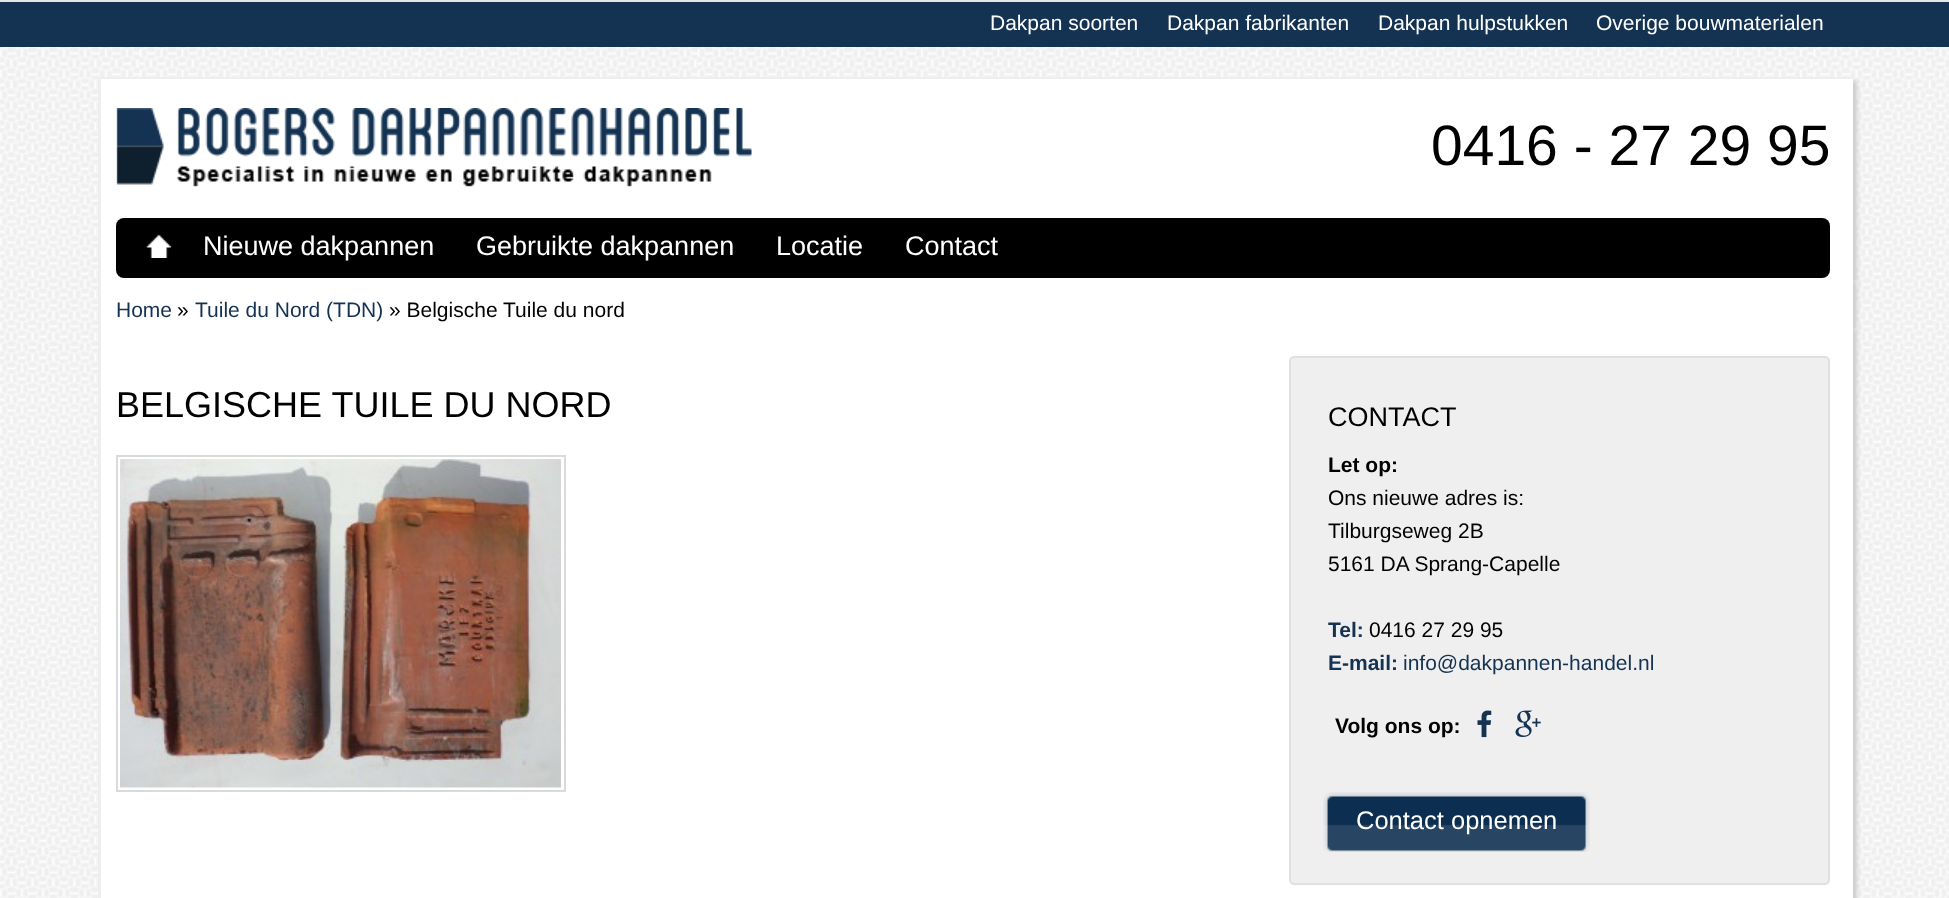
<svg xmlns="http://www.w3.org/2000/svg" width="1949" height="898">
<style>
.a{font:21px Liberation Sans;fill:#fff}
.b{font:57px Liberation Sans;fill:#000}
.c{font:27px Liberation Sans;fill:#fff}
.d{font:21px Liberation Sans;fill:#143251}
.e{font:21px Liberation Sans;fill:#000}
.f{font:36px Liberation Sans;fill:#000}
.g{font:27px Liberation Sans;fill:#000}
.h{font:bold 21px Liberation Sans;fill:#000}
.i{font:bold 21px Liberation Sans;fill:#143251}
.j{font:25.5px Liberation Sans;fill:#fff}
</style>
<rect width="100%" height="100%" fill="#fff"/>
<image href="1.png" x="0" y="47" width="1949" height="851"/>
<path fill="#e7e7e8" d="M0 0h1949v2H0z"/>
<path fill="#ccc" filter="blur(2px)" d="M102 5h1755v2H102z"/>
<path fill="#143251" d="M0 2h1949v45H0z"/>
<path fill="#ccc" filter="blur(2px)" d="M102 81h1755v201H102z"/>
<path fill="#fff" d="M101 79h1752v199H101z"/>
<path fill="#eee" d="M98 77h1755v2H98z"/>
<path fill="#eee" d="M98 77h3v201H98z"/>
<image href="2.png" x="116" y="108" width="636" height="79"/>
<path fill="#ccc" filter="blur(2px)" d="M102 282h1755v48H102z"/>
<rect fill="#000" x="116" y="218" width="1714" height="60" rx="8"/>
<image href="3.png" x="145" y="234" width="26" height="24"/>
<path fill="#fff" d="M101 278h1752v48H101z"/>
<path fill="#eee" d="M98 278h3v48H98z"/>
<path fill="#ccc" filter="blur(2px)" d="M102 330h1755v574H102z"/>
<path fill="#fff" d="M101 326h1752v572H101z"/>
<path fill="#eee" d="M98 326h3v572H98z"/>
<path fill="none" stroke="#dadada" stroke-width="2" d="M117 456h448v335H117z"/>
<image href="4.png" x="120" y="459" width="441" height="329"/>
<rect fill="#efefef" stroke="#e0e0e0" stroke-width="2" x="1290" y="357" width="539" height="527" rx="4"/>
<image href="5.png" x="1477" y="710" width="15" height="28"/>
<image href="6.png" x="1515" y="710" width="26" height="27"/>
<image href="7.png" x="1323" y="792" width="267" height="60"/>
<text class="a" x="990" y="30">Dakpan soorten</text>
<text class="a" x="1167" y="30">Dakpan fabrikanten</text>
<text class="a" x="1378" y="30">Dakpan hulpstukken</text>
<text class="a" x="1596" y="30">Overige bouwmaterialen</text>
<text class="b" x="1431" y="165">0416 - 27 29 95</text>
<text class="c" x="203" y="255">Nieuwe dakpannen</text>
<text class="c" x="476" y="255">Gebruikte dakpannen</text>
<text class="c" x="776" y="255">Locatie</text>
<text class="c" x="905" y="255">Contact</text>
<text class="d" x="116" y="317">Home</text>
<text class="e" x="177" y="317">»</text>
<text class="d" x="195" y="317">Tuile du Nord (TDN)</text>
<text class="e" x="389" y="317">» Belgische Tuile du nord</text>
<text class="f" x="116" y="417">BELGISCHE TUILE DU NORD</text>
<text class="g" x="1328" y="426">CONTACT</text>
<text class="h" x="1328" y="472">Let op:</text>
<text class="e" x="1328" y="505">Ons nieuwe adres is:</text>
<text class="e" x="1328" y="538">Tilburgseweg 2B</text>
<text class="e" x="1328" y="571">5161 DA Sprang-Capelle</text>
<text class="i" x="1328" y="637">Tel:</text>
<text class="e" x="1369" y="637">0416 27 29 95</text>
<text class="i" x="1328" y="670">E-mail:</text>
<text class="d" x="1403" y="670">info@dakpannen-handel.nl</text>
<text class="h" x="1335" y="733">Volg ons op:</text>
<text class="j" x="1356" y="829">Contact opnemen</text>
</svg>
